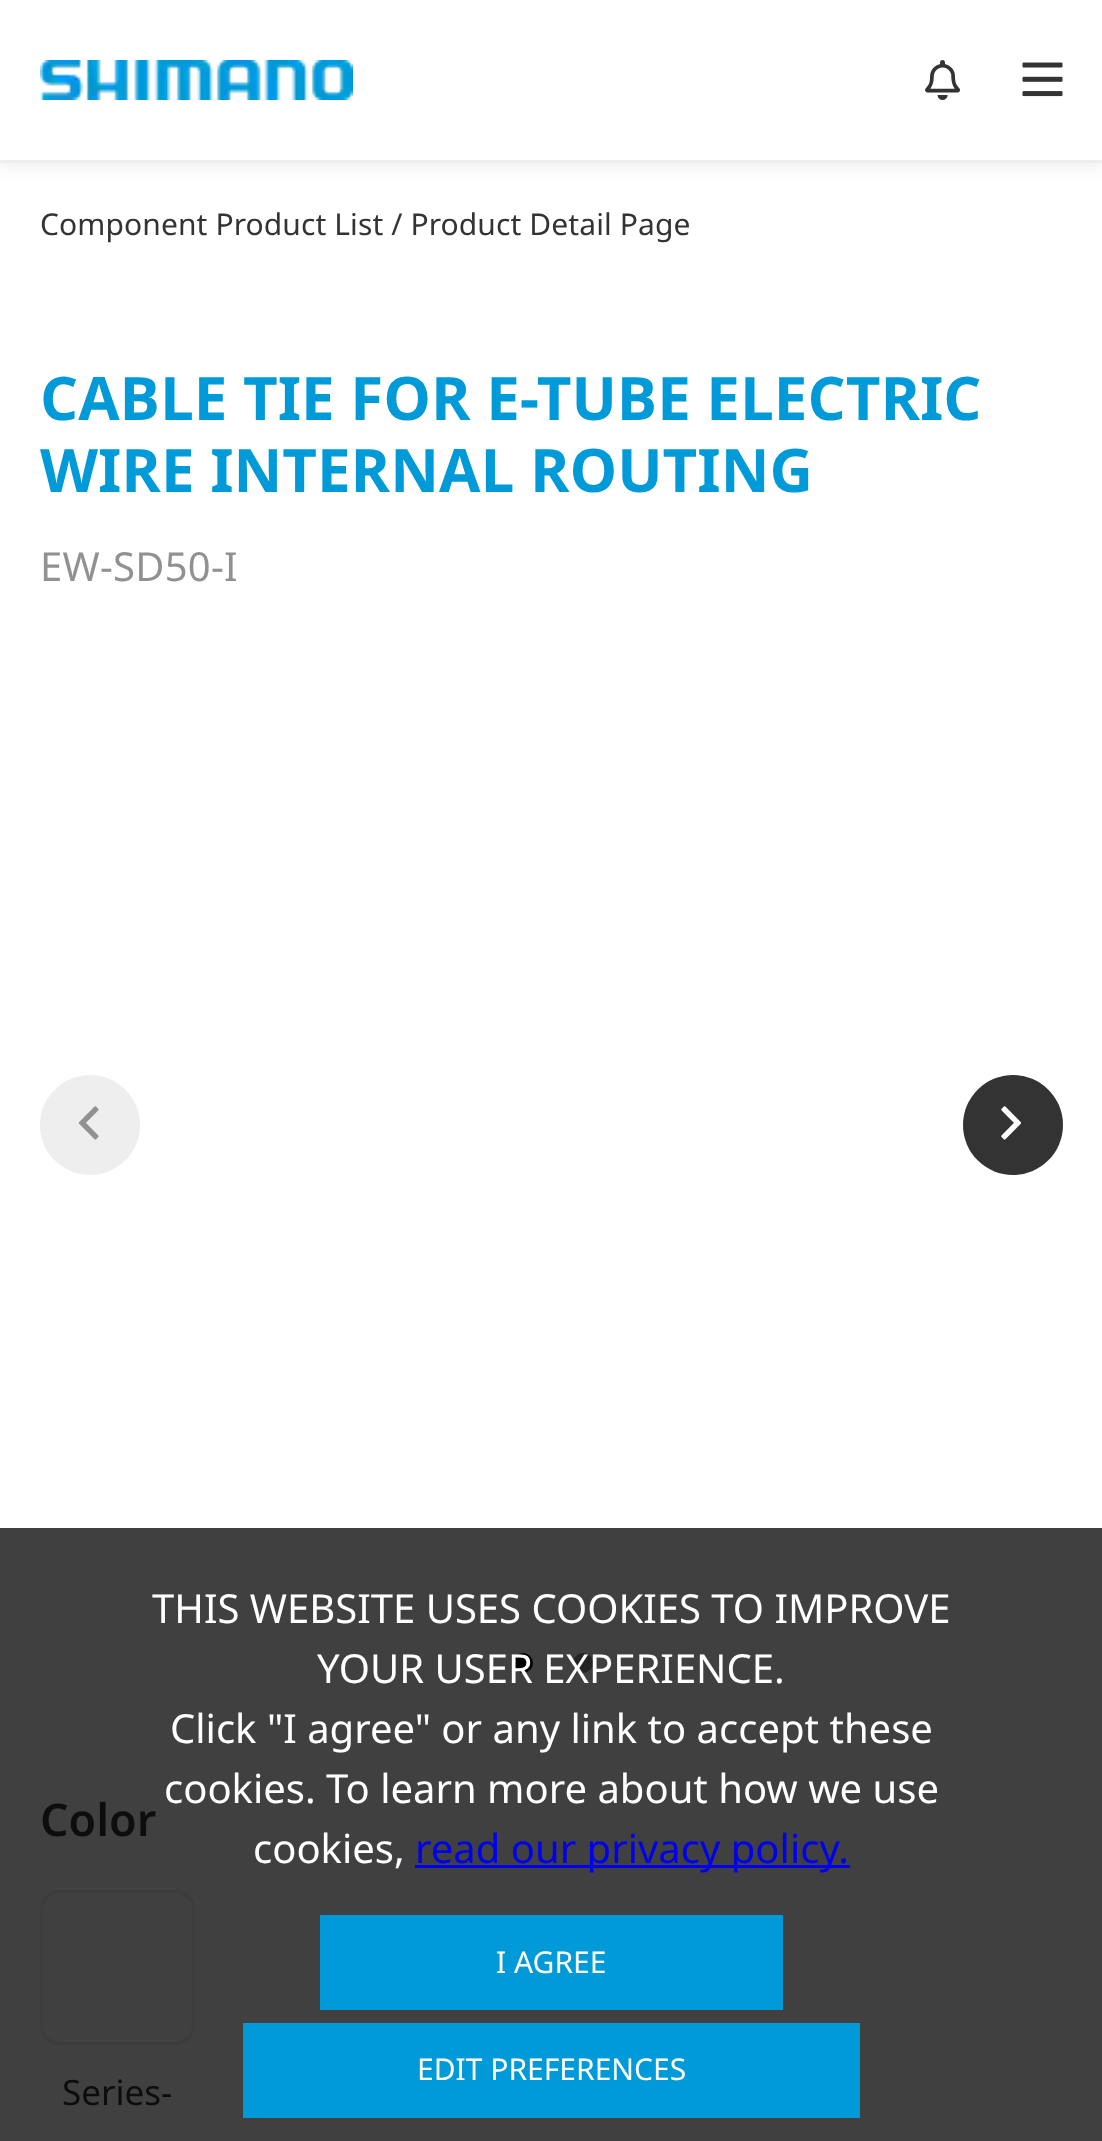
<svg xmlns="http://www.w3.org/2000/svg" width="1102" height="2141">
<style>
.a{font:30px Noto Sans;letter-spacing:0.1px;fill:#333}
.b{font:bold 60px Noto Sans;fill:#009ad9}
.c{font:40px Noto Sans;letter-spacing:0.25px;fill:#919191}
.d{font:600 45px Noto Sans;fill:#0d0d0d}
.e{font:35px Noto Sans;fill:#0d0d0d}
.f{font:40px Noto Sans;fill:#fff}
.g{font:40px Noto Sans;fill:#00e}
.h{font:30px Noto Sans;fill:#fff}
</style>
<rect width="100%" height="100%" fill="#fff"/>
<path fill="#404040" d="M0 1528h1102v613H0z"/>
<path fill="#3333331f" filter="blur(10px)" d="M0 0h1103v163H0z"/>
<path fill="#fff" d="M0 0h1102v160H0z"/>
<path fill="#eee" d="M0 160h1102v3H0z"/>
<image href="1.png" x="40" y="60" width="313" height="40"/>
<image href="2.png" x="925" y="60" width="35" height="40"/>
<image href="3.png" x="1022" y="62" width="41" height="35"/>
<circle fill="#eee" cx="90" cy="1125" r="50"/>
<image href="4.png" x="78" y="1106" width="21" height="34"/>
<circle fill="#333" cx="1013" cy="1125" r="50"/>
<image href="5.png" x="1001" y="1106" width="20" height="34"/>
<circle fill="#000" cx="523" cy="1663" r="10"/>
<circle fill="#242424" cx="583" cy="1663" r="10"/>
<rect fill="none" stroke="#3c3c3c" stroke-width="3" x="41.5" y="1891.5" width="152" height="152" rx="18.5"/>
<path fill="#00e" d="M415 1865h435v3H415z"/>
<path fill="#009ad9" d="M320 1915h463v95H320z"/>
<path fill="#009ad9" d="M243 2023h617v95H243z"/>
<text class="a" x="40" y="235">Component Product List / Product Detail Page</text>
<text class="b" x="40" y="420">CABLE TIE FOR E-TUBE ELECTRIC</text>
<text class="b" x="40" y="492">WIRE INTERNAL ROUTING</text>
<text class="c" x="40" y="581">EW-SD50-I</text>
<text class="d" x="40" y="1836">Color</text>
<text class="e" x="62" y="2105">Series-</text>
<text class="f" x="152" y="1623">THIS WEBSITE USES COOKIES TO IMPROVE</text>
<text class="f" x="317" y="1683">YOUR USER EXPERIENCE.</text>
<text class="f" x="170" y="1743">Click "I agree" or any link to accept these</text>
<text class="f" x="164" y="1803">cookies. To learn more about how we use</text>
<text class="f" x="253" y="1863">cookies,</text>
<text class="g" x="415" y="1863">read our privacy policy.</text>
<text class="h" x="496" y="1973">I AGREE</text>
<text class="h" x="417" y="2080">EDIT PREFERENCES</text>
</svg>
